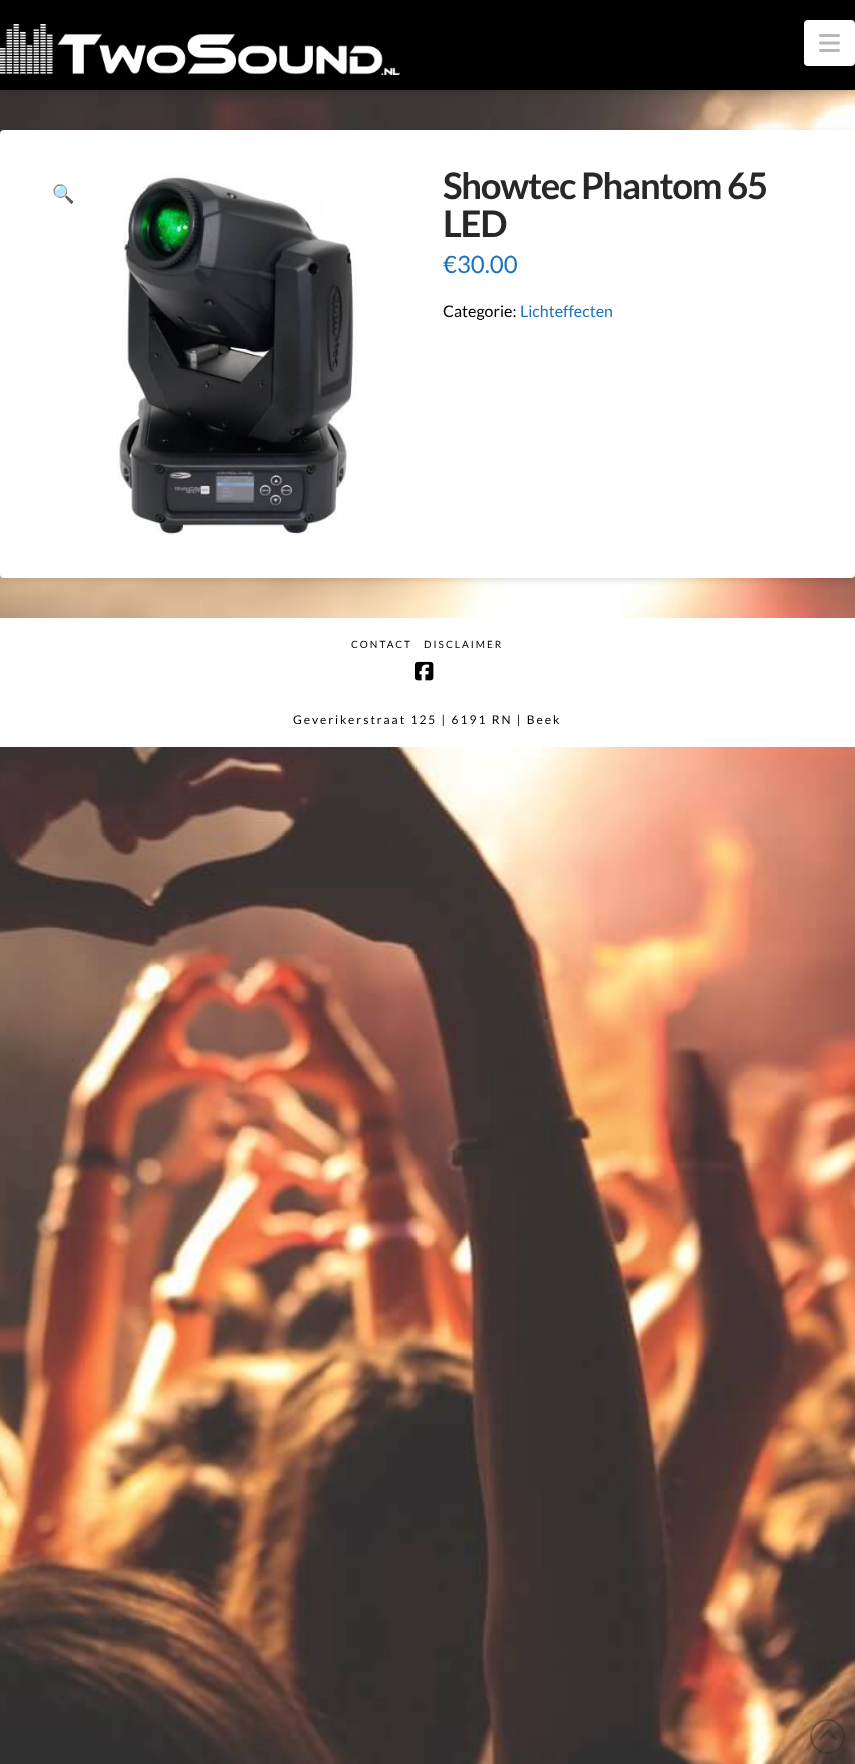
<svg xmlns="http://www.w3.org/2000/svg" width="855" height="1764">
<style>
.a{font:18px Noto Color Emoji;fill:#1e73be}
.b{font:bold 36.5px Lato;letter-spacing:-1.25px;fill:#272727}
.c{font:24px Lato;fill:#1e73be}
.d{font:16px Lato;fill:#000}
.e{font:16px Lato;fill:#1e73be}
.f{font:10px Lato;letter-spacing:2px;fill:#000}
.g{font:12px Lato;letter-spacing:2px;fill:#000}
</style>
<rect width="100%" height="100%" fill="#fff"/>
<image href="1.png" x="0" y="90" width="855" height="1674"/>
<path fill="#00000021" filter="blur(3px)" d="M0 2h855v90H0z"/>
<path fill="#000" d="M0 0h855v90H0z"/>
<image href="2.png" x="0" y="24" width="400" height="51"/>
<rect fill="#fff" x="804" y="20" width="51" height="46" rx="4"/>
<image href="3.png" x="819" y="34" width="21" height="18"/>
<rect fill="#00000021" filter="blur(3px)" y="132" width="855" height="448" rx="4"/>
<rect fill="#fff" y="130" width="855" height="448" rx="4"/>
<image href="4.png" x="116" y="173" width="241" height="361"/>
<path fill="#fff" d="M0 618h855v129H0z"/>
<image href="5.png" x="415" y="661" width="19" height="20"/>
<circle fill="none" stroke="#27272761" stroke-width="2" cx="827.5" cy="1736.5" r="16.5"/>
<image href="6.png" x="818" y="1729" width="20" height="12"/>
<text class="a" x="52" y="200">🔍</text>
<text class="b" x="443" y="199">Showtec Phantom 65</text>
<text class="b" x="443" y="237">LED</text>
<text class="c" x="443" y="273">€30.00</text>
<text class="d" x="443" y="317">Categorie:</text>
<text class="e" x="520" y="317">Lichteffecten</text>
<text class="f" x="351" y="648">CONTACT</text>
<text class="f" x="424" y="648">DISCLAIMER</text>
<text class="g" x="293" y="724">Geverikerstraat 125 | 6191 RN | Beek</text>
</svg>
